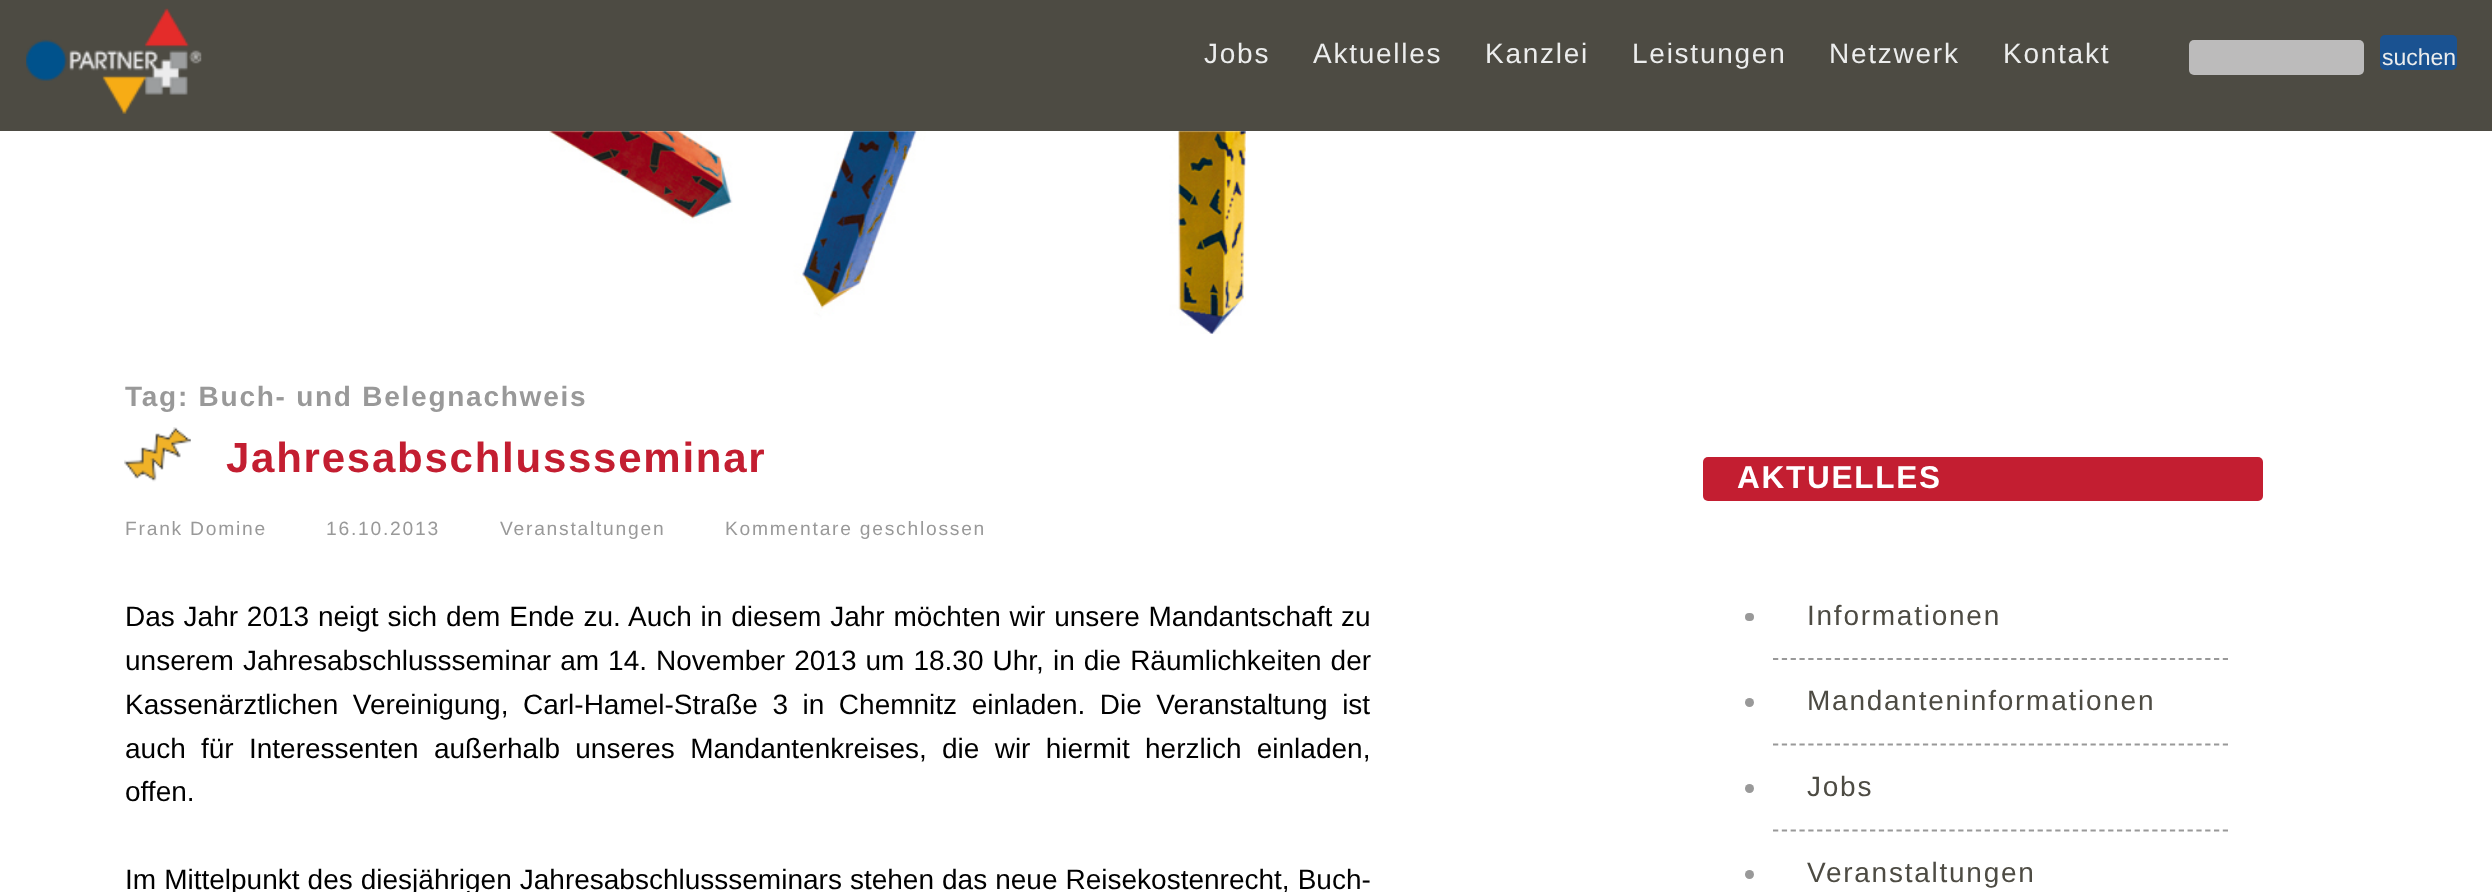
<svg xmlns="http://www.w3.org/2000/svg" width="2492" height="892">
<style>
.a{font:28px Liberation Sans;letter-spacing:1.75px;fill:#eceded}
.b{font:23px Liberation Sans;fill:#eceded}
.c{font:bold 28px Liberation Sans;letter-spacing:1.75px;fill:#999}
.d{font:bold 42px Liberation Sans;letter-spacing:1.75px;fill:#c31e31}
.e{font:19.25px Liberation Sans;letter-spacing:1.75px;fill:#999}
.f{font:28px Liberation Sans;fill:#000}
.g{font:bold 31.5px Liberation Sans;letter-spacing:1.75px;fill:#fff}
.h{font:28px Liberation Sans;letter-spacing:1.75px;fill:#4d4b43}
</style>
<rect width="100%" height="100%" fill="#4d4b43"/>
<image href="1.png" x="26" y="8" width="176" height="106"/>
<rect fill="#bcbbbb" x="2189" y="40" width="175" height="35" rx="5"/>
<rect fill="#1a5291" x="2380" y="35" width="77" height="35" rx="5"/>
<path fill="#fff" d="M0 131h2492v761H0z"/>
<image href="2.png" x="549" y="131" width="697" height="203"/>
<image href="3.png" x="124" y="427" width="67" height="55"/>
<rect fill="#c31e31" x="1703" y="457" width="560" height="44" rx="5"/>
<path fill="none" stroke="#999" stroke-width="1.8" stroke-dasharray="5.25 3.57" d="M1773 659h455"/>
<rect fill="#999" x="1745" y="613" width="9" height="8" rx="4"/>
<path fill="none" stroke="#999" stroke-width="1.8" stroke-dasharray="5.25 3.57" d="M1773 744.5h455"/>
<circle fill="#999" cx="1749.5" cy="702.5" r="4.5"/>
<path fill="none" stroke="#999" stroke-width="1.8" stroke-dasharray="5.25 3.57" d="M1773 830.5h455"/>
<circle fill="#999" cx="1749.5" cy="788.5" r="4.5"/>
<circle fill="#999" cx="1749.5" cy="874.5" r="4.5"/>
<text class="a" x="1204" y="63">Jobs</text>
<text class="a" x="1313" y="63">Aktuelles</text>
<text class="a" x="1485" y="63">Kanzlei</text>
<text class="a" x="1632" y="63">Leistungen</text>
<text class="a" x="1829" y="63">Netzwerk</text>
<text class="a" x="2003" y="63">Kontakt</text>
<text class="b" x="2382" y="65">suchen</text>
<text class="c" x="125" y="406">Tag: Buch- und Belegnachweis</text>
<text class="d" x="226" y="472">Jahresabschlussseminar</text>
<text class="e" x="125" y="535">Frank Domine</text>
<text class="e" x="326" y="535">16.10.2013</text>
<text class="e" x="500" y="535">Veranstaltungen</text>
<text class="e" x="725" y="535">Kommentare geschlossen</text>
<text class="f" x="125" y="626" word-spacing="1">Das Jahr 2013 neigt sich dem Ende zu. Auch in diesem Jahr möchten wir unsere Mandantschaft zu</text>
<text class="f" x="125" y="670" word-spacing="1.25">unserem Jahresabschlussseminar am 14. November 2013 um 18.30 Uhr, in die Räumlichkeiten der</text>
<text class="f" x="125" y="714" word-spacing="6.75">Kassenärztlichen Vereinigung, Carl-Hamel-Straße 3 in Chemnitz einladen. Die Veranstaltung ist</text>
<text class="f" x="125" y="758" word-spacing="7.5">auch für Interessenten außerhalb unseres Mandantenkreises, die wir hiermit herzlich einladen,</text>
<text class="f" x="125" y="801">offen.</text>
<text class="f" x="125" y="889" word-spacing="0.25">Im Mittelpunkt des diesjährigen Jahresabschlussseminars stehen das neue Reisekostenrecht, Buch-</text>
<text class="g" x="1737" y="488">AKTUELLES</text>
<text class="h" x="1807" y="625">Informationen</text>
<text class="h" x="1807" y="710">Mandanteninformationen</text>
<text class="h" x="1807" y="796">Jobs</text>
<text class="h" x="1807" y="882">Veranstaltungen</text>
</svg>
